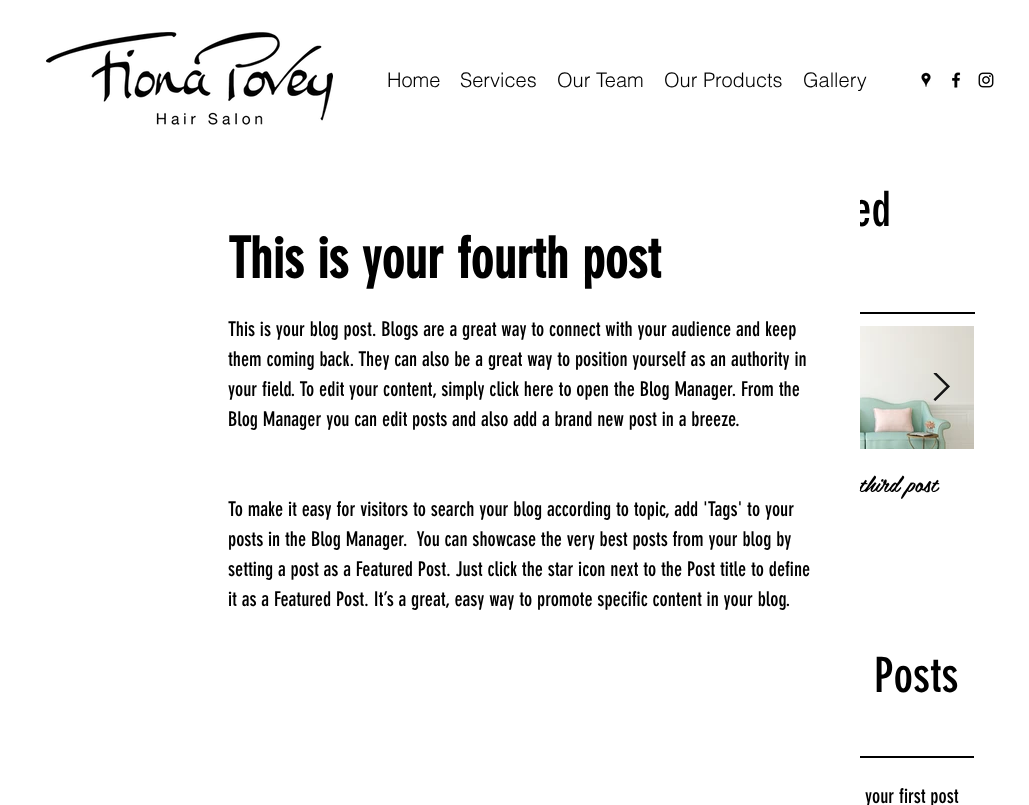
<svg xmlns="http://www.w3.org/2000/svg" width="1029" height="805">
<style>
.a{font:300 20px helvetica;fill:#000}
.b{font:bold 56px 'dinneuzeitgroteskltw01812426';fill:#000}
.c{font:20px 'dinneuzeitgroteskltw01812426';fill:#000}
.d{font:48px 'dinneuzeitgroteskltw01812426';fill:#000}
.e{font:22px 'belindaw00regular';fill:#000}
</style>
<rect width="100%" height="100%" fill="#fff"/>
<image href="1.png" x="46" y="32" width="287" height="93"/>
<image href="2.png" x="921" y="72" width="10" height="15"/>
<image href="3.png" x="952" y="72" width="9" height="16"/>
<image href="4.png" x="978" y="72" width="16" height="16"/>
<path fill="#000" d="M860 312h115v2H860z"/>
<image href="6.png" x="860" y="326" width="114" height="123"/>
<image href="5.png" x="933" y="373" width="17" height="28"/>
<path fill="#000" d="M860 756h114v2H860z"/>
<text class="a" x="387" y="87">Home</text>
<text class="a" x="460" y="87">Services</text>
<text class="a" x="557" y="87">Our Team</text>
<text class="a" x="664" y="87">Our Products</text>
<text class="a" x="803" y="87">Gallery</text>
<text class="b" x="228" y="278">This is your fourth post</text>
<text class="c" x="228" y="336">This is your blog post. Blogs are a great way to connect with your audience and keep</text>
<text class="c" x="228" y="366">them coming back. They can also be a great way to position yourself as an authority in</text>
<text class="c" x="228" y="396">your field. To edit your content, simply click here to open the Blog Manager. From the</text>
<text class="c" x="228" y="426">Blog Manager you can edit posts and also add a brand new post in a breeze.</text>
<text class="c" x="228" y="516">To make it easy for visitors to search your blog according to topic, add 'Tags' to your</text>
<text class="c" xml:space="preserve" x="228" y="546">posts in the Blog Manager.  You can showcase the very best posts from your blog by</text>
<text class="c" x="228" y="576">setting a post as a Featured Post. Just click the star icon next to the Post title to define</text>
<text class="c" x="228" y="606">it as a Featured Post. It’s a great, easy way to promote specific content in your blog.</text>
<text class="d" x="852" y="226">ed</text>
<text class="e" x="859" y="492">third post</text>
<path fill="#fff" d="M854 200h6v290H854z"/>
<text class="d" x="874" y="692">Posts</text>
<text class="c" x="865" y="803">your first post</text>
</svg>
